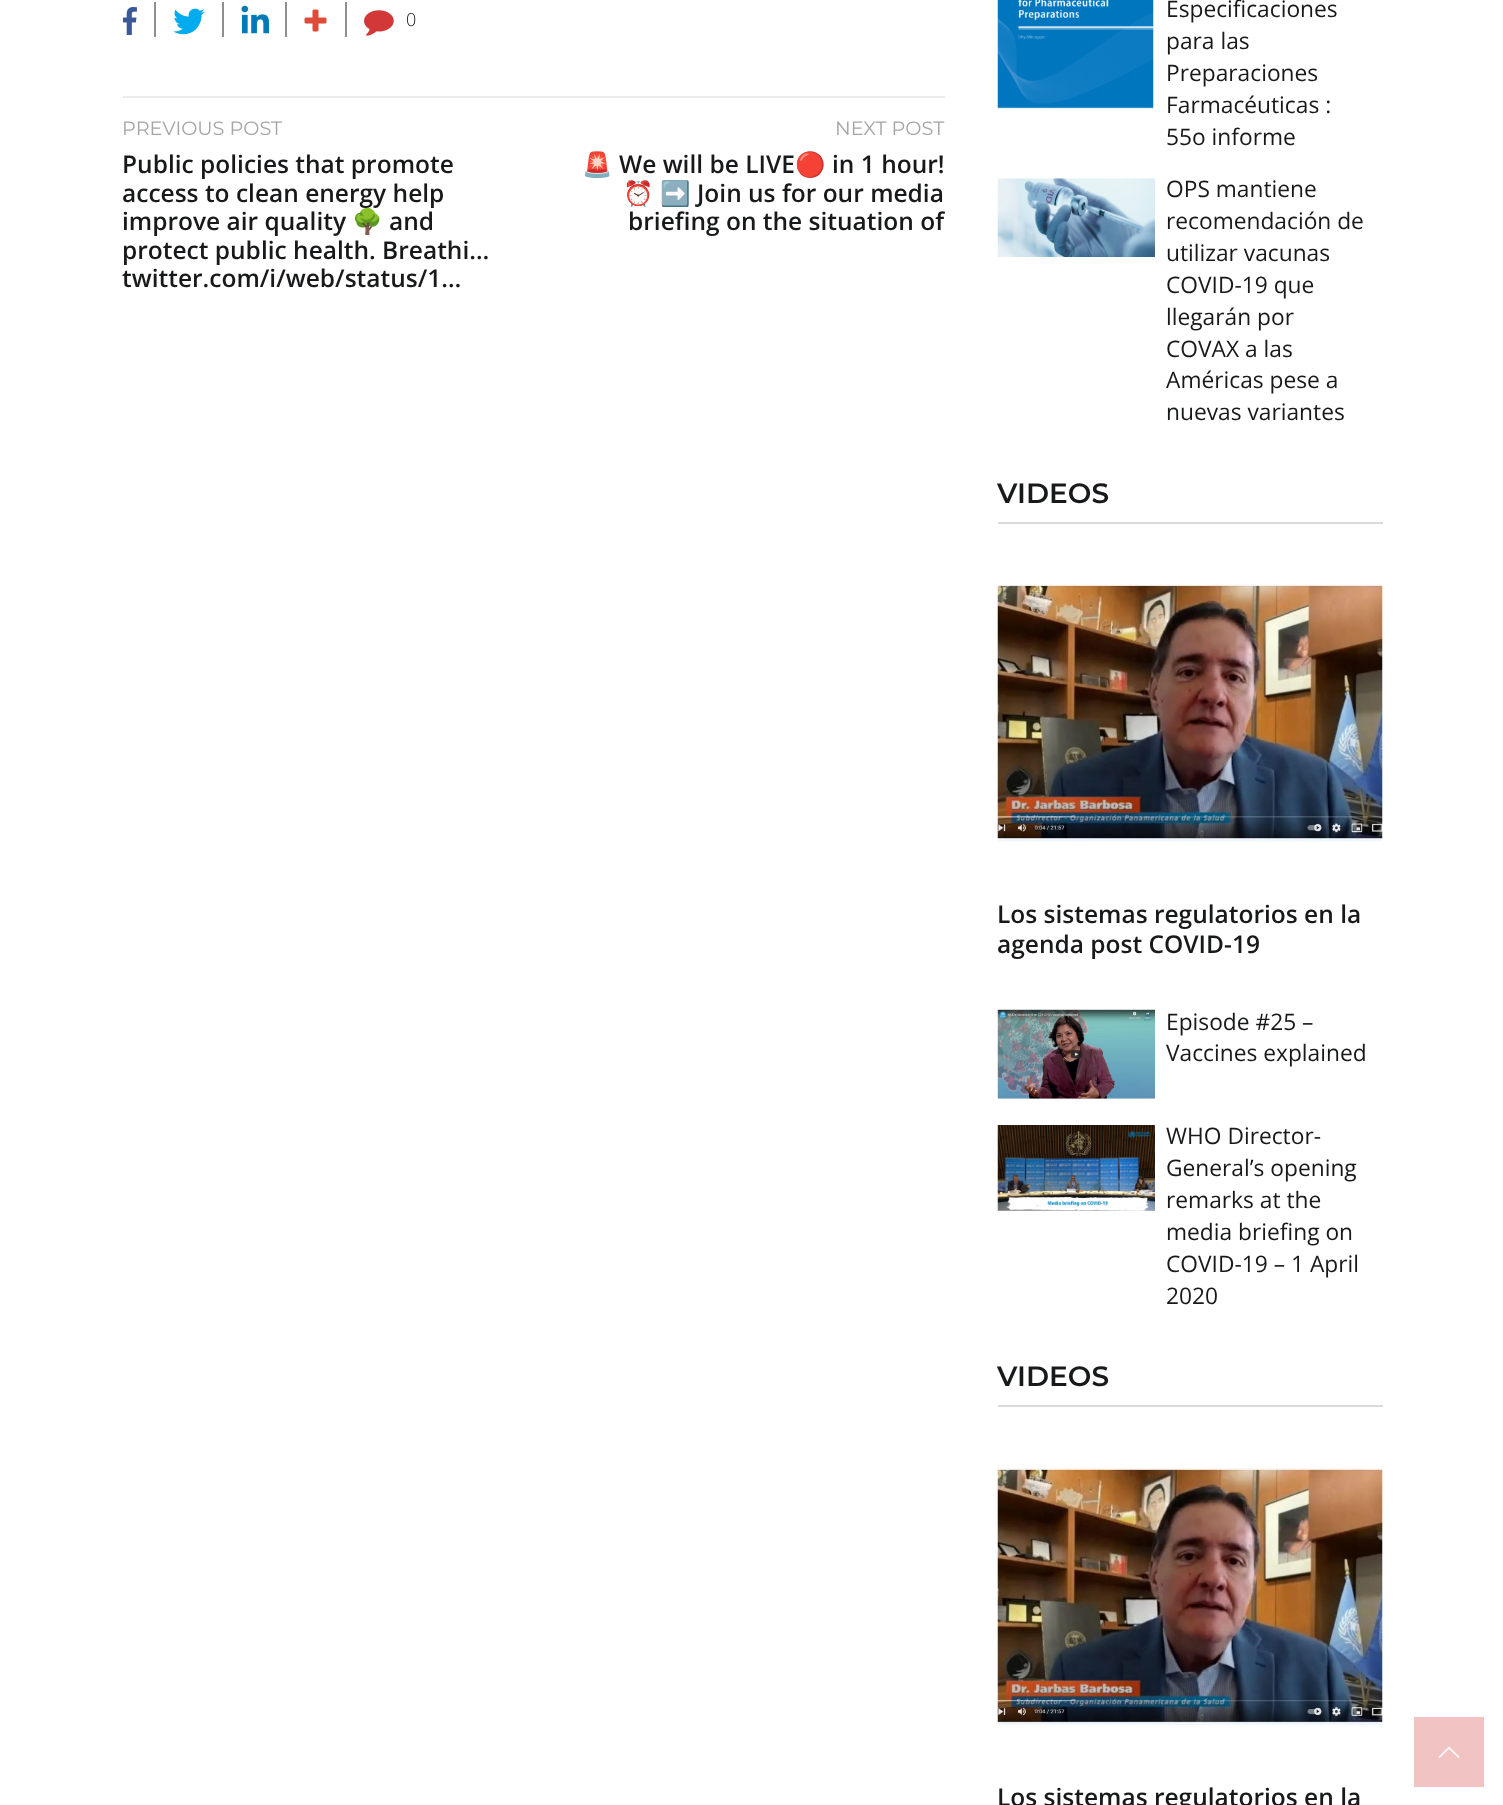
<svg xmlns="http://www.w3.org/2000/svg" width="1503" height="1805">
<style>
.a{font:300 18px Open Sans;fill:#18191a}
.b{font:19.25px Montserrat;fill:#a5a5a5}
.c{font:600 24.5px Open Sans;fill:#18191a}
.d{font:bold 24.5px Noto Color Emoji;fill:#18191a}
.e{font:22.75px Open Sans;fill:#18191a}
.f{font:600 28px Montserrat;fill:#18191a}
</style>
<defs>
<clipPath id="clip1"><path d="M998 898h385v61H998z"/></clipPath>
</defs>
<rect width="100%" height="100%" fill="#fff"/>
<path fill="#8f8f8f" d="M154 2h2v35H154z"/>
<image href="1.png" x="123" y="7" width="14" height="28"/>
<path fill="#8f8f8f" d="M222 2h2v35H222z"/>
<image href="2.png" x="173" y="8" width="32" height="27"/>
<path fill="#8f8f8f" d="M285 2h2v35H285z"/>
<image href="3.png" x="241" y="5" width="29" height="29"/>
<path fill="#8f8f8f" d="M345 2h2v35H345z"/>
<image href="4.png" x="304" y="9" width="23" height="23"/>
<image href="5.png" x="364" y="10" width="30" height="26"/>
<path fill="#ebebeb" d="M123 96h822v2H123z"/>
<image href="6.png" x="997" y="0" width="157" height="109"/>
<image href="7.png" x="997" y="178" width="158" height="79"/>
<path fill="#dadada" d="M998 522h385v2H998z"/>
<image href="8.png" x="997" y="584" width="386" height="258"/>
<image href="9.png" x="997" y="1009" width="158" height="90"/>
<image href="10.png" x="997" y="1125" width="158" height="86"/>
<path fill="#dadada" d="M998 1405h385v2H998z"/>
<image href="11.png" x="997" y="1468" width="386" height="258"/>
<path fill="#f2c3c3" d="M1414 1717h70v70H1414z"/>
<image href="12.png" x="1438" y="1746" width="22" height="12"/>
<text class="a" x="406" y="26">0</text>
<text class="b" x="122" y="135">PREVIOUS POST</text>
<text class="c" x="122" y="173">Public policies that promote</text>
<text class="c" x="122" y="202">access to clean energy help</text>
<text class="c" x="122" y="230">improve air quality</text>
<text class="d" x="352" y="230">🌳</text>
<text class="c" x="389" y="230">and</text>
<text class="c" x="122" y="259">protect public health. Breathi…</text>
<text class="c" x="122" y="287">twitter.com/i/web/status/1…</text>
<text class="b" x="835" y="135">NEXT POST</text>
<text class="d" x="582" y="173">🚨</text>
<text class="c" x="619" y="173">We will be LIVE</text>
<text class="d" x="795" y="173">🔴</text>
<text class="c" x="832" y="173">in 1 hour!</text>
<text class="d" x="623" y="202">⏰</text>
<text class="d" x="660" y="202">➡️</text>
<text class="c" x="697" y="202">Join us for our media</text>
<text class="c" x="628" y="230">briefing on the situation of</text>
<text class="e" x="1166" y="17">Especificaciones</text>
<text class="e" x="1166" y="49">para las</text>
<text class="e" x="1166" y="81">Preparaciones</text>
<text class="e" x="1166" y="113">Farmacéuticas :</text>
<text class="e" x="1166" y="145">55o informe</text>
<text class="e" x="1166" y="197">OPS mantiene</text>
<text class="e" x="1166" y="229">recomendación de</text>
<text class="e" x="1166" y="261">utilizar vacunas</text>
<text class="e" x="1166" y="293">COVID-19 que</text>
<text class="e" x="1166" y="325">llegarán por</text>
<text class="e" x="1166" y="357">COVAX a las</text>
<text class="e" x="1166" y="388">Américas pese a</text>
<text class="e" x="1166" y="420">nuevas variantes</text>
<text class="f" x="997" y="503">VIDEOS</text>
<text class="c" x="997" y="923">Los sistemas regulatorios en la</text>
<g clip-path="url(#clip1)">
<text class="c" x="997" y="953">agenda post COVID-19</text>
</g>
<text class="e" x="1166" y="1030">Episode #25 –</text>
<text class="e" x="1166" y="1061">Vaccines explained</text>
<text class="e" x="1166" y="1144">WHO Director-</text>
<text class="e" x="1166" y="1176">General’s opening</text>
<text class="e" x="1166" y="1208">remarks at the</text>
<text class="e" x="1166" y="1240">media briefing on</text>
<text class="e" x="1166" y="1272">COVID-19 – 1 April</text>
<text class="e" x="1166" y="1304">2020</text>
<text class="f" x="997" y="1386">VIDEOS</text>
<text class="c" x="997" y="1806">Los sistemas regulatorios en la</text>
</svg>
